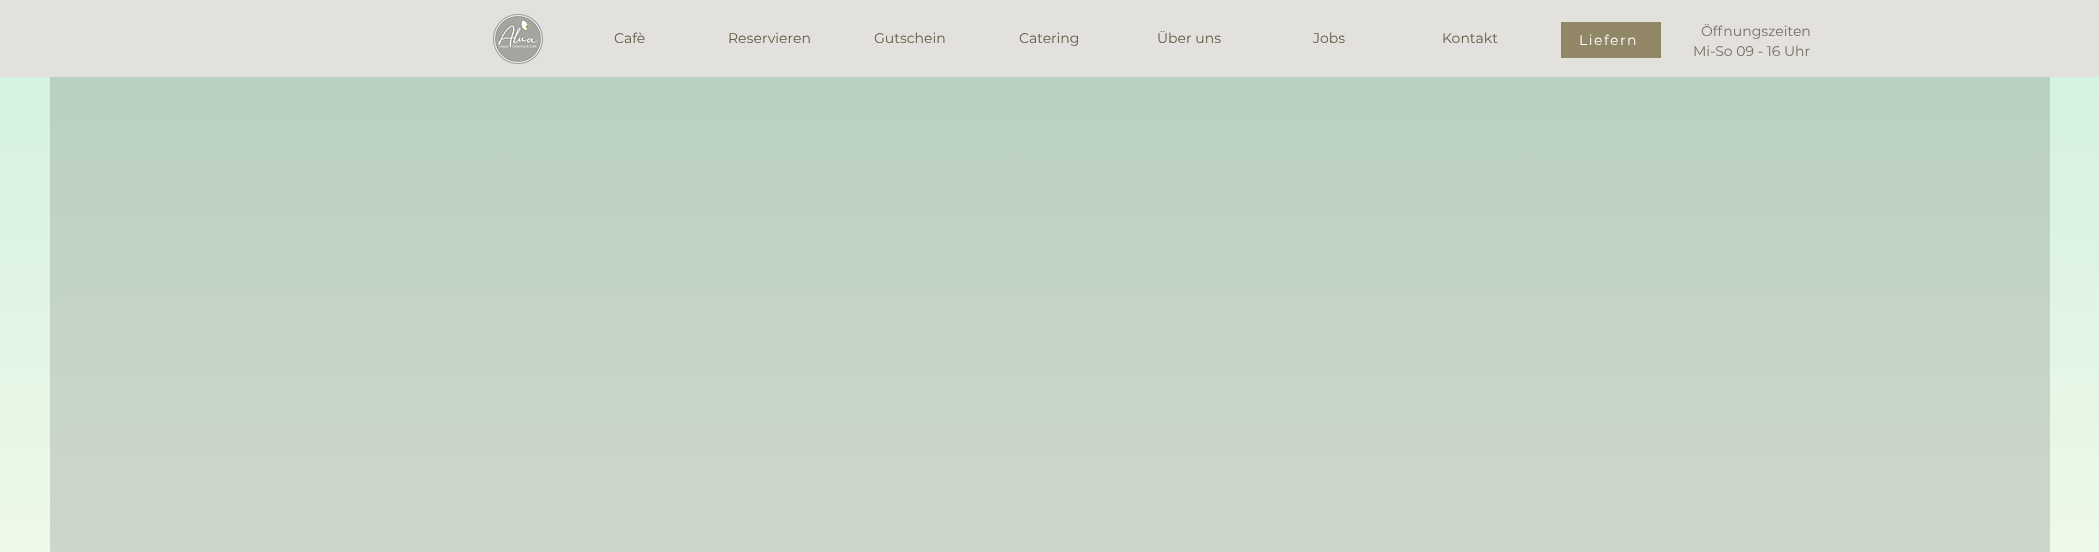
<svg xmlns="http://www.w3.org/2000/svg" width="2099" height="552">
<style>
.a{font:14px Montserrat;fill:#615a44}
.b{font:14px Montserrat;letter-spacing:1.5px;fill:#fff}
.c{font:14px Montserrat;fill:#756f63}
</style>
<defs>
<linearGradient id="g1" gradientUnits="userSpaceOnUse" x1="1050" y1="77" x2="1050" y2="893"><stop offset="0" stop-color="#d5f1e0"/><stop offset="1" stop-color="#ffffef"/></linearGradient>
<linearGradient id="g2" gradientUnits="userSpaceOnUse" x1="1050" y1="77" x2="1050" y2="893"><stop offset="0" stop-color="#b9d1c2"/><stop offset="1" stop-color="#dddccf"/></linearGradient>
</defs>
<rect width="100%" height="100%" fill="#fff"/>
<path fill="#e2e1de" d="M0 0h2099v77H0z"/>
<image href="1.png" x="493" y="14" width="50" height="50"/>
<path fill="#918766" d="M1561 22h100v36H1561z"/>
<path fill="url(#g1)" d="M0 77h2099v475H0z"/>
<path fill="url(#g2)" d="M50 77h2000v475H50z"/>
<text class="a" x="614" y="43">Cafè</text>
<text class="a" x="728" y="43">Reservieren</text>
<text class="a" x="874" y="43">Gutschein</text>
<text class="a" x="1019" y="43">Catering</text>
<text class="a" x="1157" y="43">Über uns</text>
<text class="a" x="1313" y="43">Jobs</text>
<text class="a" x="1442" y="43">Kontakt</text>
<text class="b" x="1579" y="45">Liefern</text>
<text class="c" x="1701" y="36">Öffnungszeiten</text>
<text class="c" x="1693" y="56">Mi-So 09 - 16 Uhr</text>
</svg>
